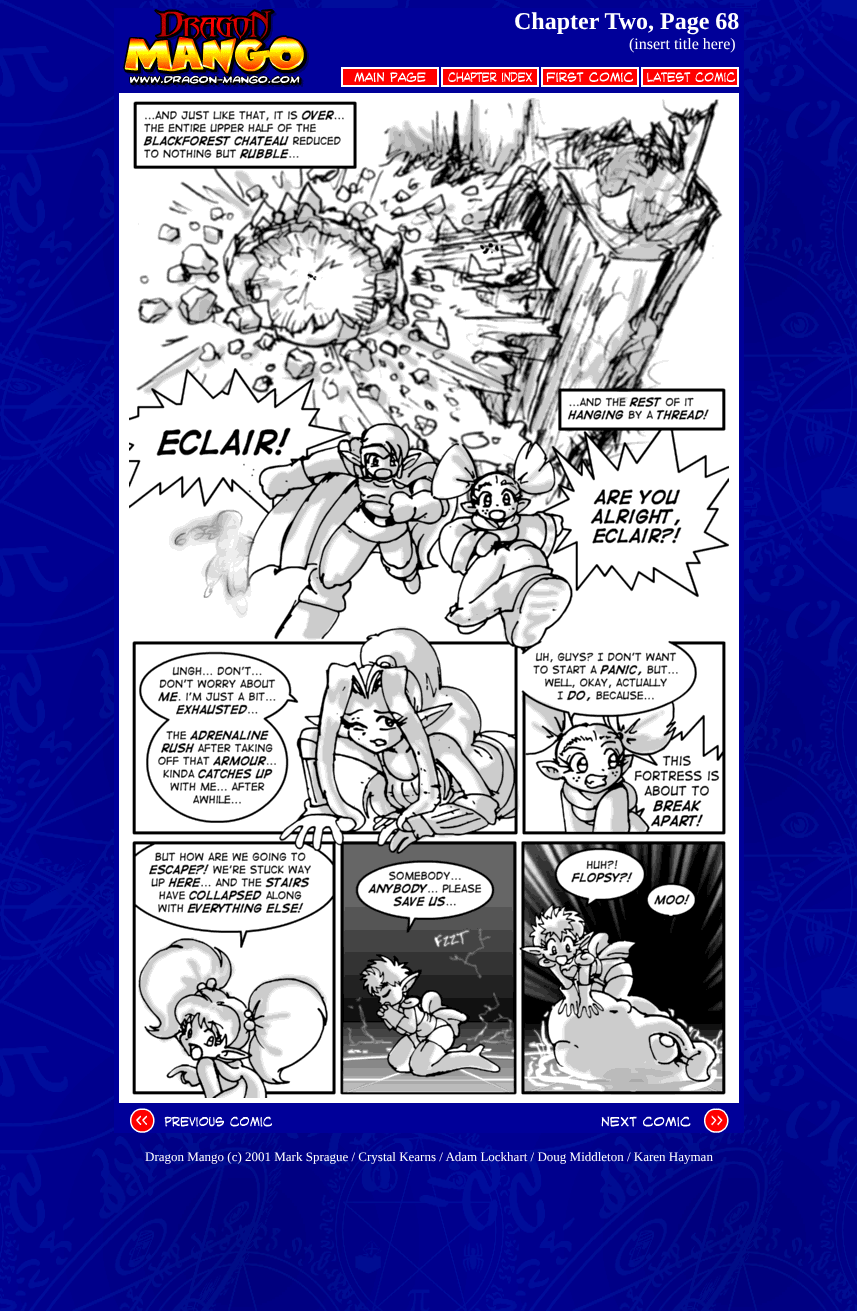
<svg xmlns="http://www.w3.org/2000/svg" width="857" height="1311">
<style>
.a{font:bold 24px Liberation Serif;fill:#fff}
.b{font:16px Liberation Serif;fill:#fff}
.c{font:13px Liberation Serif;fill:#fff}
</style>
<rect width="100%" height="100%" fill="#fff"/>
<image href="1.png" x="0" y="0" width="857" height="1311"/>
<path fill="#009" d="M114 8h630v1125H114z"/>
<image href="2.png" x="123" y="9" width="186" height="78"/>
<image href="3.png" x="341" y="67" width="98" height="20"/>
<image href="4.png" x="441" y="67" width="98" height="20"/>
<image href="5.png" x="541" y="67" width="98" height="20"/>
<image href="6.png" x="641" y="67" width="98" height="20"/>
<path fill="#fff" d="M119 93h620v1010H119z"/>
<image href="7.png" x="129" y="98" width="600" height="1000"/>
<image href="8.png" x="130" y="1108" width="142" height="25"/>
<image href="9.png" x="601" y="1108" width="128" height="25"/>
<text class="a" x="514" y="29">Chapter Two, Page 68</text>
<text class="b" x="629" y="49">(insert title here)</text>
<text class="c" x="145" y="1161">Dragon Mango (c) 2001 Mark Sprague / Crystal Kearns / Adam Lockhart / Doug Middleton / Karen Hayman</text>
</svg>
